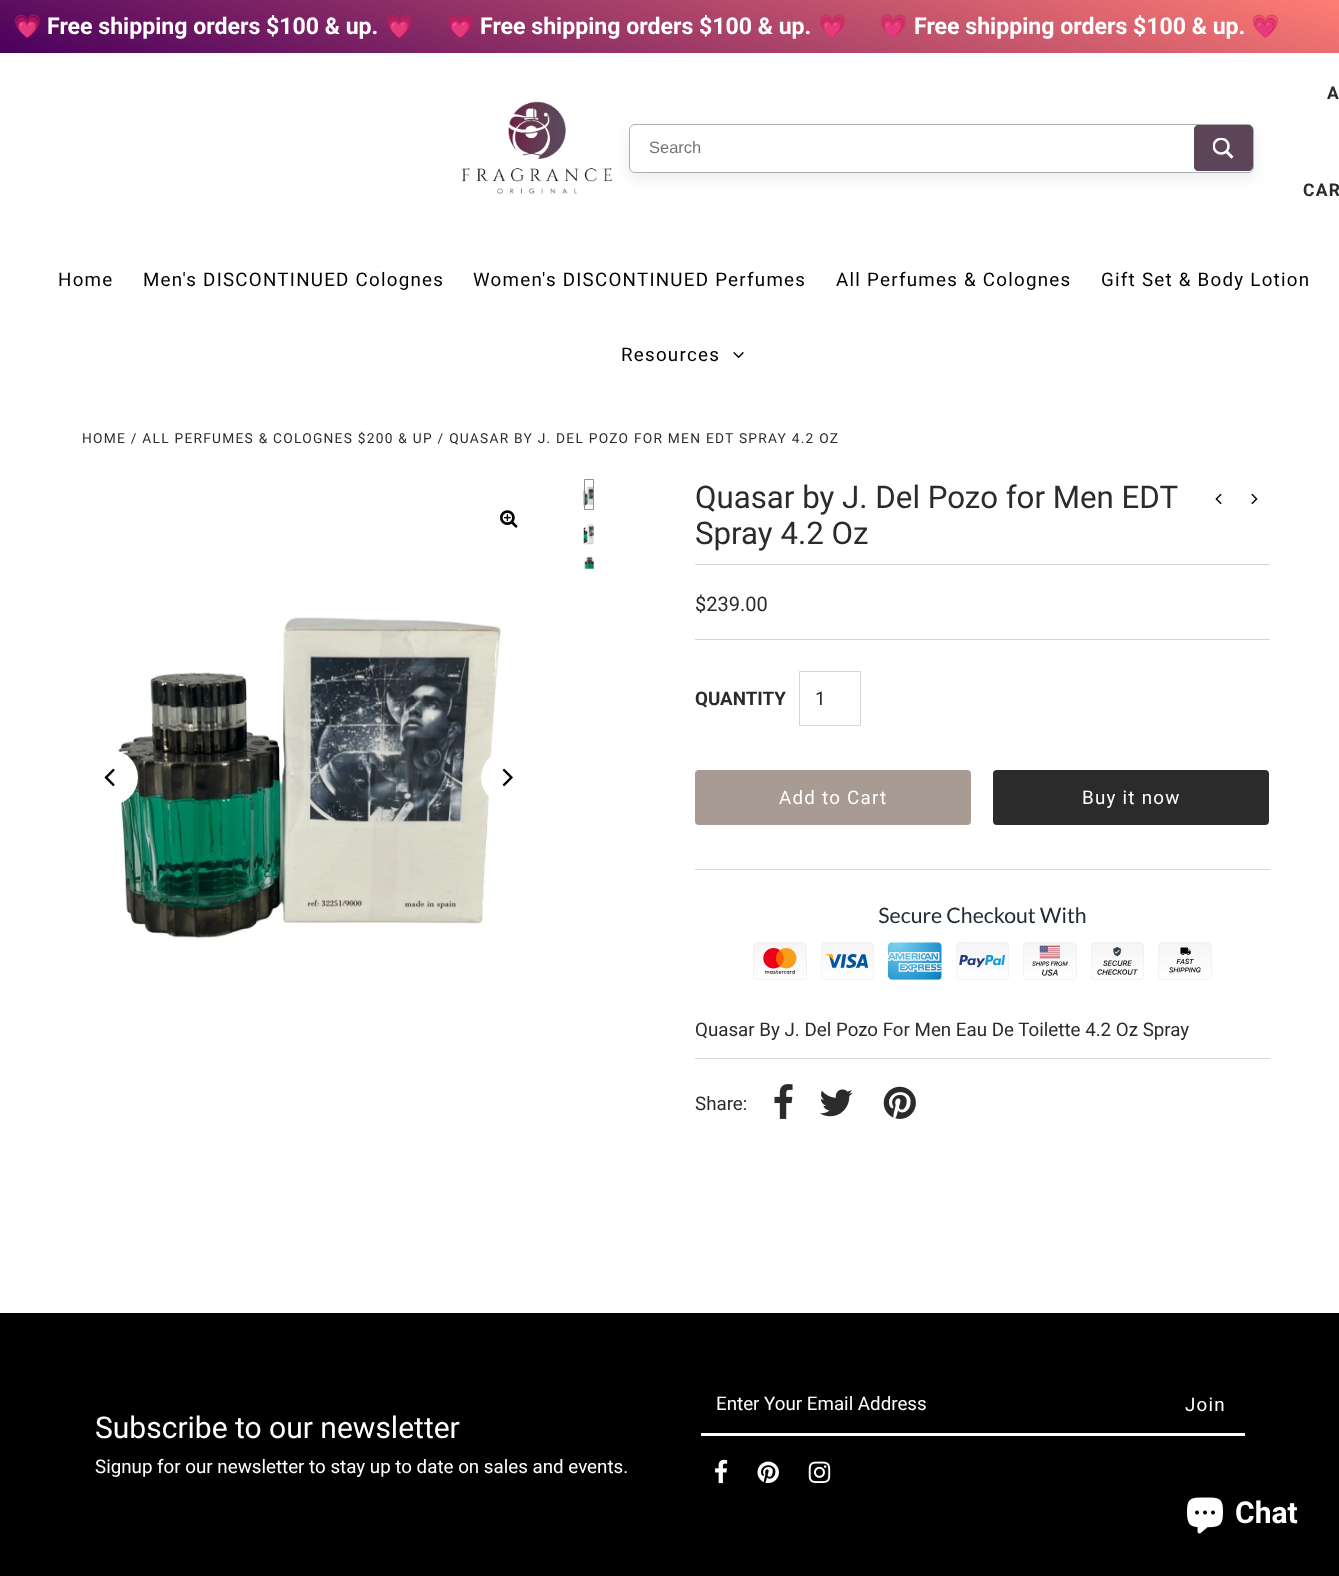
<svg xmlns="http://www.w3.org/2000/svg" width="1339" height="1576">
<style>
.a{font:bold 23.1px Noto Color Emoji;fill:#fff}
.b{font:bold 23.1px Roboto;fill:#fff}
.c{font:bold 17.5px Roboto;fill:#2b2b2b}
.d{font:bold 17.5px Roboto;letter-spacing:1.25px;fill:#2b2b2b}
.e{font:18.75px Roboto;letter-spacing:1.25px;fill:#000}
.f{font:13.75px Roboto;letter-spacing:1.25px;fill:#2b2b2b}
.g{font:31.25px Roboto;fill:#2b2b2b}
.h{font:20px Roboto;fill:#2b2b2b}
.i{font:bold 18.75px Roboto;fill:#2b2b2b}
.j{font:18.75px Roboto;fill:#2b2b2b}
.k{font:18.75px Roboto;letter-spacing:1.25px;fill:#fff}
.l{font:18.75px Roboto;fill:#fff}
.m{font:30px Roboto;fill:#fff}
.n{font:16.5px Liberation Sans;fill:#757575}
.o{font:bold 30px Roboto;fill:#fff}
</style>
<defs>
<linearGradient id="g1" gradientUnits="userSpaceOnUse" x1="735" y1="-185" x2="605" y2="238"><stop offset="0" stop-color="#ff7d73"/><stop offset="1" stop-color="#4a005e"/></linearGradient>
<clipPath id="clip1"><path d="M13 13h1315v27H13z"/></clipPath>
</defs>
<rect width="100%" height="100%" fill="#fff"/>
<path fill="url(#g1)" d="M0 0h1339v53H0z"/>
<image href="1.png" x="461" y="101" width="152" height="93"/>
<image href="2.png" x="733" y="352" width="11" height="6"/>
<image href="5.png" x="117" y="617" width="386" height="322"/>
<circle fill="#fff" cx="110.5" cy="777.5" r="27.5"/>
<image href="3.png" x="104" y="768" width="11" height="19"/>
<image href="4.png" x="500" y="510" width="18" height="18"/>
<circle fill="#fff" cx="508.5" cy="777.5" r="27.5"/>
<image href="6.png" x="502" y="768" width="11" height="19"/>
<image href="7.png" x="583" y="486" width="10" height="20"/>
<path fill="none" stroke="#919191" d="M584.5 479.5h9v30H584.5z"/>
<image href="8.png" x="583" y="524" width="11" height="21"/>
<image href="9.png" x="584" y="556" width="10" height="13"/>
<image href="10.png" x="1215" y="493" width="7" height="12"/>
<image href="11.png" x="1251" y="493" width="7" height="12"/>
<path fill="#d5d5d5" d="M695 564h575v1H695z"/>
<path fill="#d5d5d5" d="M695 869h575v1H695z"/>
<path fill="#d5d5d5" d="M695 639h575v1H695z"/>
<path fill="none" stroke="#d5d5d5" d="M799.5 671.5h61v54H799.5z"/>
<rect fill="#a79b93" x="695" y="770" width="276" height="55" rx="4"/>
<rect fill="#2b2b2b" x="993" y="770" width="276" height="55" rx="4"/>
<image href="12.png" x="753" y="907" width="459" height="73"/>
<path fill="#d5d5d5" d="M695 1058h575v1H695z"/>
<image href="13.png" x="774" y="1084" width="19" height="35"/>
<image href="14.png" x="819" y="1089" width="34" height="28"/>
<image href="15.png" x="883" y="1086" width="33" height="33"/>
<path fill="#000" d="M0 1313h1339v263H0z"/>
<path fill="#fff" d="M701 1433h544v3H701z"/>
<image href="16.png" x="715" y="1459" width="13" height="25"/>
<image href="17.png" x="757" y="1461" width="22" height="22"/>
<image href="18.png" x="808" y="1461" width="23" height="22"/>
<rect fill="#00000014" filter="blur(7.5px)" x="629" y="129" width="625" height="49" rx="6"/>
<rect fill="#fff" stroke="#b0b0b0" x="629.5" y="124.5" width="624" height="48" rx="5.5"/>
<path fill="#5c4558" d="M1198 125h50c3 0 5 2 5 5v36c0 3-2 5-5 5h-50c-2 0-4-2-4-4v-38c0-2 2-4 4-4z"/>
<image href="19.png" x="1213" y="138" width="21" height="21"/>
<image href="20.png" x="1187" y="1497" width="36" height="37"/>
<g clip-path="url(#clip1)">
<text class="a" x="13" y="34">💗</text>
</g>
<text class="b" x="47" y="34">Free shipping orders $100 &amp; up.</text>
<text class="a" x="385" y="34">💗</text>
<text class="a" x="446" y="34">💗</text>
<text class="b" x="480" y="34">Free shipping orders $100 &amp; up.</text>
<text class="a" x="818" y="34">💗</text>
<text class="a" x="879" y="34">💗</text>
<text class="b" x="914" y="34">Free shipping orders $100 &amp; up.</text>
<text class="a" x="1251" y="34">💗</text>
<text class="c" x="1327" y="99">A</text>
<text class="d" x="1303" y="196">CAR</text>
<text class="e" x="58" y="286">Home</text>
<text class="e" x="143" y="286">Men's DISCONTINUED Colognes</text>
<text class="e" x="473" y="286">Women's DISCONTINUED Perfumes</text>
<text class="e" x="836" y="286">All Perfumes &amp; Colognes</text>
<text class="e" x="1101" y="286">Gift Set &amp; Body Lotion</text>
<text class="e" x="621" y="361">Resources</text>
<text class="f" x="82" y="443">HOME / ALL PERFUMES &amp; COLOGNES $200 &amp; UP / QUASAR BY J. DEL POZO FOR MEN EDT SPRAY 4.2 OZ</text>
<text class="g" x="695" y="508">Quasar by J. Del Pozo for Men EDT</text>
<text class="g" x="695" y="544">Spray 4.2 Oz</text>
<text class="h" x="695" y="611">$239.00</text>
<text class="i" x="695" y="705">QUANTITY</text>
<text class="j" x="815" y="705">1</text>
<text class="k" x="779" y="804">Add to Cart</text>
<text class="k" x="1082" y="804">Buy it now</text>
<text class="j" x="695" y="1036">Quasar By J. Del Pozo For Men Eau De Toilette 4.2 Oz Spray</text>
<text class="j" x="695" y="1110">Share:</text>
<text class="l" x="716" y="1410">Enter Your Email Address</text>
<text class="k" x="1185" y="1411">Join</text>
<text class="m" x="95" y="1438">Subscribe to our newsletter</text>
<text class="l" x="95" y="1473">Signup for our newsletter to stay up to date on sales and events.</text>
<text class="n" x="649" y="153">Search</text>
<text class="o" x="1235" y="1523">Chat</text>
</svg>
